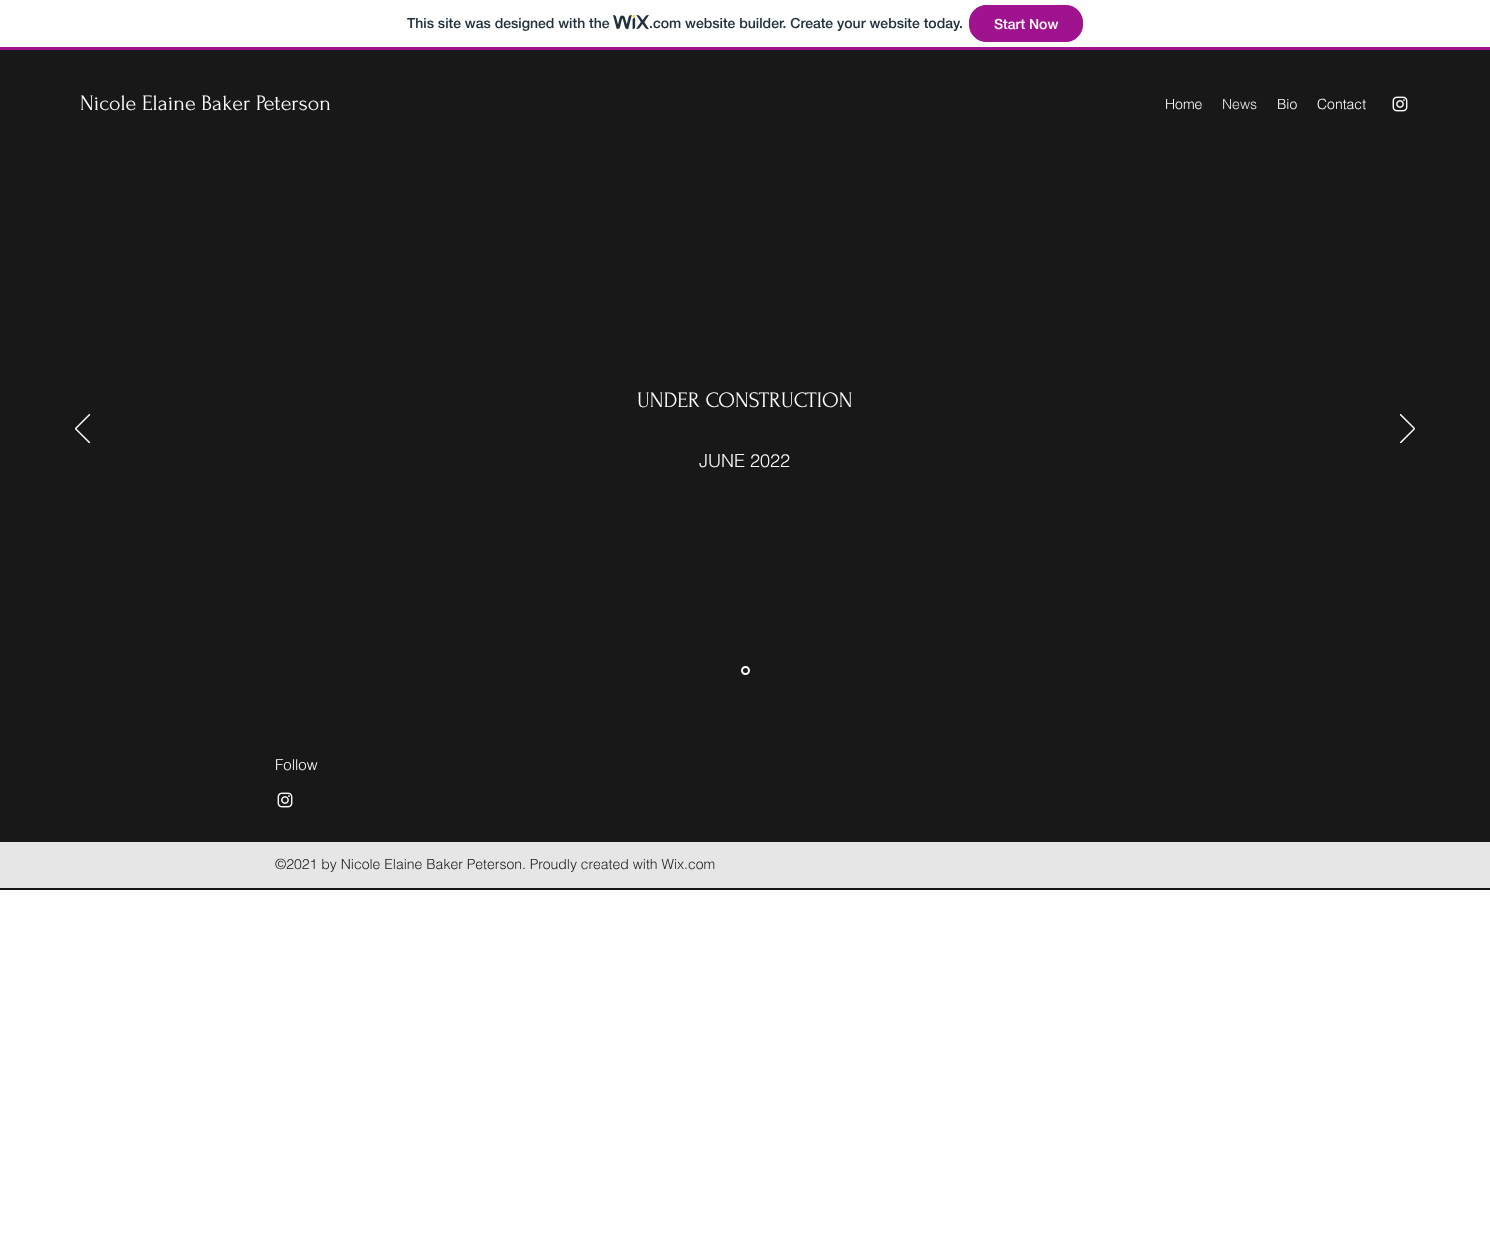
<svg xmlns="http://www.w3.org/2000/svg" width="1490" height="1254">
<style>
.a{font:500 14px 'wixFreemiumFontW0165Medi';fill:#20303c}
.b{font:500 14px 'wixFreemiumFontW0165Medi';fill:#fff}
.c{font:22px Forum;fill:#fff}
.d{font:300 14px helvetica;fill:#fff}
.e{font:300 14px helvetica;fill:#e6e6e6}
.f{font:300 18px helvetica;fill:#fff}
.g{font:300 15px helvetica;fill:#fff}
.h{font:300 14px helvetica;fill:#181818}
</style>
<rect width="100%" height="100%" fill="#fff"/>
<path fill="#a0138e" d="M0 47h1490v3H0z"/>
<image href="1.png" x="613" y="15" width="36" height="15"/>
<rect fill="#a0138e" stroke="#a0138e" x="969.5" y="5.5" width="113" height="36" rx="16.5"/>
<path fill="#181818" d="M0 50h1490v840H0z"/>
<image href="2.png" x="1392" y="96" width="16" height="16"/>
<image href="3.png" x="75" y="414" width="15" height="29"/>
<image href="4.png" x="1400" y="414" width="15" height="29"/>
<circle fill="none" stroke="#fff" stroke-width="2" cx="745.5" cy="670.5" r="3.5"/>
<image href="2.png" x="277" y="792" width="16" height="16"/>
<path fill="#e6e6e6" d="M0 842h1490v46H0z"/>
<text class="a" x="407" y="28">This site was designed with the</text>
<text class="a" x="649" y="28">.com website builder. Create your website today.</text>
<text class="b" x="994" y="29">Start Now</text>
<text class="c" x="80" y="110">Nicole Elaine Baker Peterson</text>
<text class="d" x="1165" y="109">Home</text>
<text class="e" x="1222" y="109">News</text>
<text class="d" x="1277" y="109">Bio</text>
<text class="d" x="1317" y="109">Contact</text>
<text class="c" x="637" y="407">UNDER CONSTRUCTION</text>
<text class="f" x="699" y="467">JUNE 2022</text>
<text class="g" x="275" y="770">Follow</text>
<text class="h" x="275" y="869">©2021 by Nicole Elaine Baker Peterson. Proudly created with Wix.com</text>
</svg>
